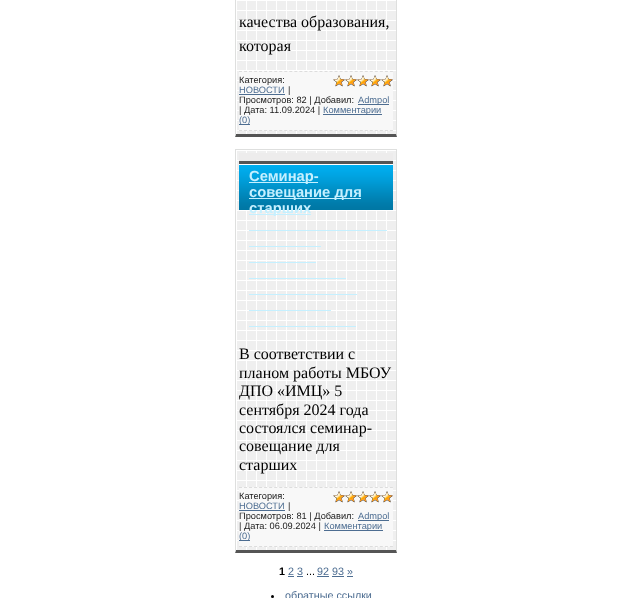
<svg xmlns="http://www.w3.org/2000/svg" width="642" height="598">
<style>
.a{font:16px Liberation Serif;fill:#000}
.b{font:9.25px Liberation Sans;fill:#1a1a1a}
.c{font:9.25px Liberation Sans;fill:#4d6d91}
.d{font:bold 14.75px Liberation Sans;fill:#c5f0ff}
.e{font:bold 10.75px Liberation Sans;fill:#000}
.f{font:10.75px Liberation Sans;fill:#4d6d91}
.g{font:10.75px Liberation Sans;fill:#000}
</style>
<rect width="100%" height="100%" fill="#fff"/>
<image href="1.png" x="235" y="1" width="161" height="136"/>
<path fill="#dedfde" d="M397-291v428l-1-3v-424z"/>
<path fill="#555" d="M397 137h-162l1-3h160z"/>
<path fill="#dedfde" d="M235 137v-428l1 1v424z"/>
<path fill="#f8f8f8" d="M239 71h154v60H239z"/>
<path fill="none" stroke="#ddd" stroke-dasharray="3 2.03" d="M239 71.5h154"/>
<path fill="none" stroke="#ddd" stroke-dasharray="3 2.03" d="M239 130.5h154"/>
<image href="2.png" x="333" y="75" width="60" height="12"/>
<image href="3.png" x="333" y="75" width="60" height="12"/>
<path fill="#4d6d91" d="M239 94h46v1H239z"/>
<path fill="#4d6d91" d="M358 104h31v1H358z"/>
<path fill="#4d6d91" d="M323 114h59v1H323z"/>
<path fill="#4d6d91" d="M239 124h11v1H239z"/>
<image href="4.png" x="235" y="150" width="161" height="403"/>
<path fill="#dedfde" d="M235 149h162v1H235z"/>
<path fill="#dedfde" d="M397 149v404l-1-3v-400z"/>
<path fill="#555" d="M397 553h-162l1-3h160z"/>
<path fill="#dedfde" d="M235 553v-404l1 1v400z"/>
<image href="5.png" x="239" y="153" width="154" height="57"/>
<path fill="#c5f0ff" d="M249 182h69v1H249z"/>
<path fill="#c5f0ff" d="M249 198h112v1H249z"/>
<path fill="#c5f0ff" d="M249 214h62v1H249z"/>
<path fill="#c5f0ff" d="M249 230h138v1H249z"/>
<path fill="#c5f0ff" d="M249 246h72v1H249z"/>
<path fill="#c5f0ff" d="M249 262h67v1H249z"/>
<path fill="#c5f0ff" d="M249 278h97v1H249z"/>
<path fill="#c5f0ff" d="M249 294h108v1H249z"/>
<path fill="#c5f0ff" d="M249 310h82v1H249z"/>
<path fill="#c5f0ff" d="M249 326h107v1H249z"/>
<path fill="#f8f8f8" d="M239 487h154v60H239z"/>
<path fill="none" stroke="#ddd" stroke-dasharray="3 2.03" d="M239 487.5h154"/>
<path fill="none" stroke="#ddd" stroke-dasharray="3 2.03" d="M239 546.5h154"/>
<image href="2.png" x="333" y="491" width="60" height="12"/>
<image href="3.png" x="333" y="491" width="60" height="12"/>
<path fill="#4d6d91" d="M239 510h46v1H239z"/>
<path fill="#4d6d91" d="M358 520h31v1H358z"/>
<path fill="#4d6d91" d="M324 530h59v1H324z"/>
<path fill="#4d6d91" d="M239 540h11v1H239z"/>
<path fill="#4d6d91" d="M288 576h6v1H288z"/>
<path fill="#4d6d91" d="M317 576h12v1H317z"/>
<path fill="#4d6d91" d="M297 576h6v1H297z"/>
<path fill="#4d6d91" d="M332 576h12v1H332z"/>
<path fill="#4d6d91" d="M347 576h6v1H347z"/>
<circle fill="#000" cx="272.5" cy="596.5" r="1.5"/>
<text class="a" x="239" y="27">качества образования,</text>
<text class="a" x="239" y="51">которая</text>
<text class="b" x="239" y="83">Категория:</text>
<text class="c" x="239" y="93">НОВОСТИ</text>
<text class="b" x="288" y="93">|</text>
<text class="b" x="239" y="103">Просмотров: 82 | Добавил:</text>
<text class="c" x="358" y="103">Admpol</text>
<text class="b" x="239" y="113">| Дата: 11.09.2024 |</text>
<text class="c" x="323" y="113">Комментарии</text>
<text class="c" x="239" y="123">(0)</text>
<text class="d" x="249" y="181">Семинар-</text>
<text class="d" x="249" y="197">совещание для</text>
<text class="d" x="249" y="213">старших</text>
<text class="a" x="239" y="359">В соответствии с</text>
<text class="a" x="239" y="378">планом работы МБОУ</text>
<text class="a" x="239" y="396">ДПО «ИМЦ» 5</text>
<text class="a" x="239" y="415">сентября 2024 года</text>
<text class="a" x="239" y="433">состоялся семинар-</text>
<text class="a" x="239" y="451">совещание для</text>
<text class="a" x="239" y="470">старших</text>
<text class="b" x="239" y="499">Категория:</text>
<text class="c" x="239" y="509">НОВОСТИ</text>
<text class="b" x="288" y="509">|</text>
<text class="b" x="239" y="519">Просмотров: 81 | Добавил:</text>
<text class="c" x="358" y="519">Admpol</text>
<text class="b" x="239" y="529">| Дата: 06.09.2024 |</text>
<text class="c" x="324" y="529">Комментарии</text>
<text class="c" x="239" y="539">(0)</text>
<text class="e" x="279" y="575">1</text>
<text class="f" x="288" y="575">2 3</text>
<text class="g" x="306" y="575">...</text>
<text class="f" x="317" y="575">92 93 »</text>
<text class="f" x="285" y="599">обратные ссылки</text>
</svg>
